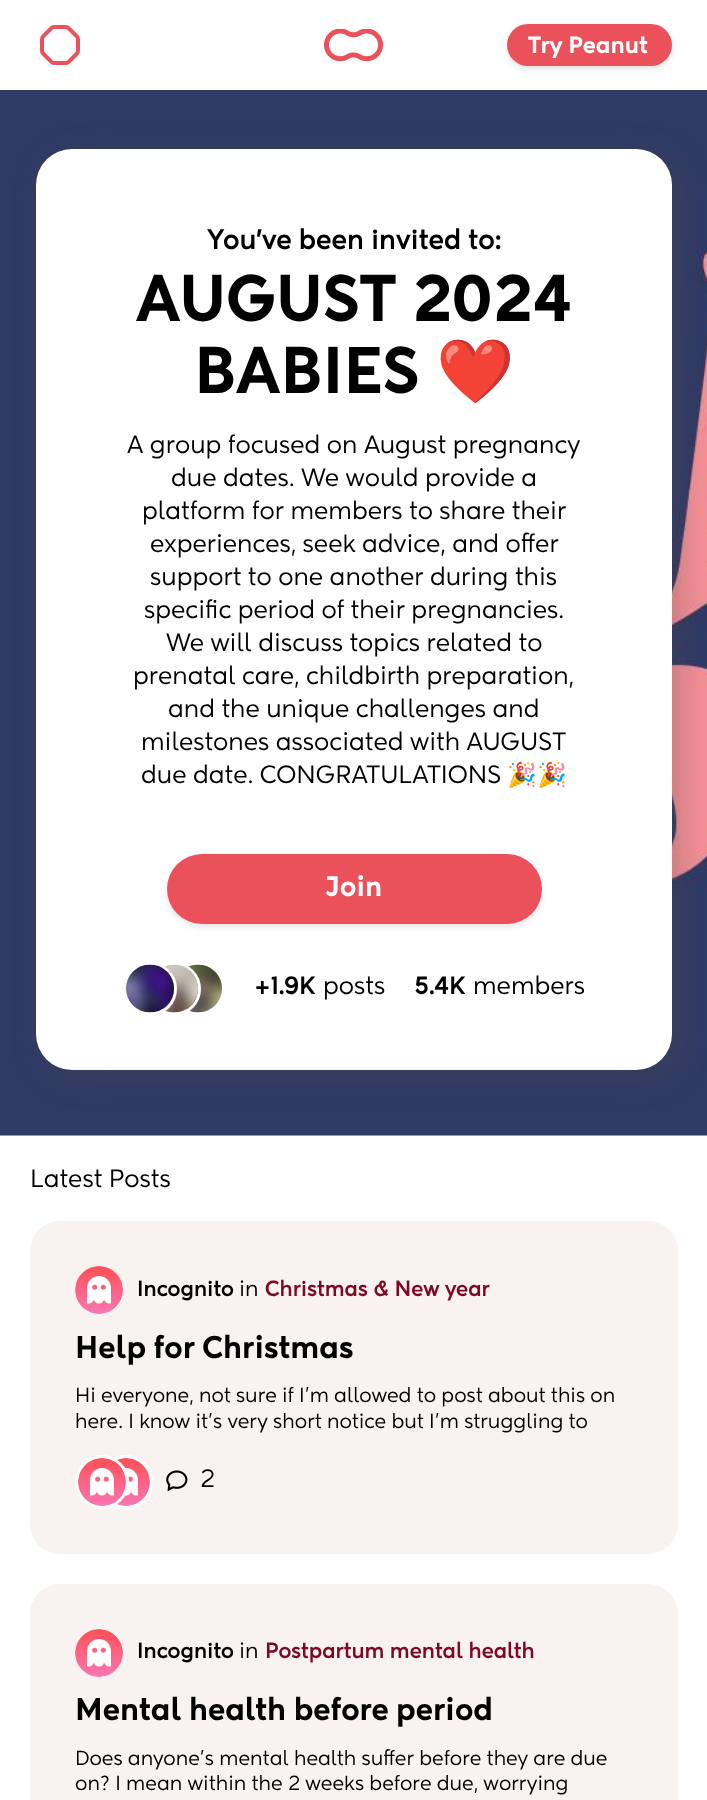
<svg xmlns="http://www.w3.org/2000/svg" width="707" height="1800">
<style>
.a{font:900 22.5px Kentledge;fill:#fff}
.b{font:800 27px Kentledge;fill:#000}
.c{font:900 63px Kentledge;fill:#000}
.d{font:bold 63px Noto Color Emoji;fill:#000}
.e{font:24px Kentledge;fill:#000}
.f{font:24px Noto Color Emoji;fill:#000}
.g{font:900 27px Kentledge;fill:#fff}
.h{font:800 24px Kentledge;fill:#000}
.i{font:800 21px Kentledge;fill:#000}
.j{font:21px Kentledge;fill:#000}
.k{font:800 21px Kentledge;fill:#7f0924}
.l{font:900 30px Kentledge;fill:#000}
.m{font:19.5px Kentledge;fill:#000}
</style>
<rect width="100%" height="100%" fill="#fff"/>
<image href="1.png" x="40" y="25" width="40" height="40"/>
<image href="2.png" x="324" y="29" width="60" height="33"/>
<rect fill="#0000001a" filter="blur(3px)" x="507" y="27" width="165" height="42" rx="21"/>
<rect fill="#ea515a" x="507" y="24" width="165" height="42" rx="21"/>
<image href="3.png" x="0" y="90" width="707" height="1046"/>
<rect fill="#5445454d" filter="blur(15px)" x="44" y="156" width="636" height="921" rx="36"/>
<rect fill="#fff" x="36" y="149" width="636" height="921" rx="36"/>
<rect fill="#0000001a" filter="blur(3px)" x="167" y="857" width="375" height="70" rx="35"/>
<rect fill="#ea515a" x="167" y="854" width="375" height="70" rx="35"/>
<image href="6.png" x="185" y="964" width="37" height="49"/>
<circle fill="none" stroke="#fff" stroke-width="3" cx="174" cy="989" r="25.5"/>
<image href="5.png" x="161" y="964" width="37" height="49"/>
<circle fill="none" stroke="#fff" stroke-width="3" cx="150" cy="989" r="25.5"/>
<image href="4.png" x="126" y="964" width="48" height="49"/>
<rect fill="#f8f2f0" x="30" y="1221" width="648" height="333" rx="30"/>
<image href="7.png" x="75" y="1266" width="48" height="48"/>
<circle fill="none" stroke="#fff" stroke-width="3" cx="126" cy="1482" r="25.5"/>
<image href="9.png" x="113" y="1458" width="37" height="48"/>
<circle fill="none" stroke="#fff" stroke-width="3" cx="102" cy="1482" r="25.5"/>
<image href="8.png" x="78" y="1458" width="48" height="48"/>
<image href="10.png" x="166" y="1470" width="22" height="22"/>
<rect fill="#f8f2f0" x="30" y="1584" width="648" height="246" rx="30"/>
<image href="11.png" x="75" y="1629" width="48" height="48"/>
<text class="a" x="528" y="53">Try Peanut</text>
<text class="b" x="207" y="249">You've been invited to:</text>
<text class="c" x="136" y="321">AUGUST 2024</text>
<text class="c" x="194" y="393">BABIES</text>
<text class="d" x="436" y="393">❤️</text>
<text class="e" x="127" y="453">A group focused on August pregnancy</text>
<text class="e" x="171" y="486">due dates. We would provide a</text>
<text class="e" x="142" y="519">platform for members to share their</text>
<text class="e" x="150" y="552">experiences, seek advice, and offer</text>
<text class="e" x="150" y="585">support to one another during this</text>
<text class="e" x="144" y="618">specific period of their pregnancies.</text>
<text class="e" x="166" y="651">We will discuss topics related to</text>
<text class="e" x="133" y="684">prenatal care, childbirth preparation,</text>
<text class="e" x="168" y="717">and the unique challenges and</text>
<text class="e" x="141" y="750">milestones associated with AUGUST</text>
<text class="e" x="141" y="783">due date. CONGRATULATIONS</text>
<text class="f" x="507" y="783">🎉🎉</text>
<text class="g" x="326" y="896">Join</text>
<text class="h" x="255" y="994">+1.9K</text>
<text class="e" x="323" y="994">posts</text>
<text class="h" x="415" y="994">5.4K</text>
<text class="e" x="473" y="994">members</text>
<text class="e" x="30" y="1187">Latest Posts</text>
<text class="i" x="137" y="1296">Incognito</text>
<text class="j" x="239" y="1296">in</text>
<text class="k" x="265" y="1296">Christmas &amp; New year</text>
<text class="l" x="75" y="1358">Help for Christmas</text>
<text class="m" x="75" y="1402">Hi everyone, not sure if I’m allowed to post about this on</text>
<text class="m" x="75" y="1428">here. I know it’s very short notice but I’m struggling to</text>
<text class="e" x="200" y="1487">2</text>
<text class="i" x="137" y="1658">Incognito</text>
<text class="j" x="239" y="1658">in</text>
<text class="k" x="265" y="1658">Postpartum mental health</text>
<text class="l" x="75" y="1720">Mental health before period</text>
<text class="m" x="75" y="1765">Does anyone’s mental health suffer before they are due</text>
<text class="m" x="75" y="1790">on? I mean within the 2 weeks before due, worrying</text>
</svg>
